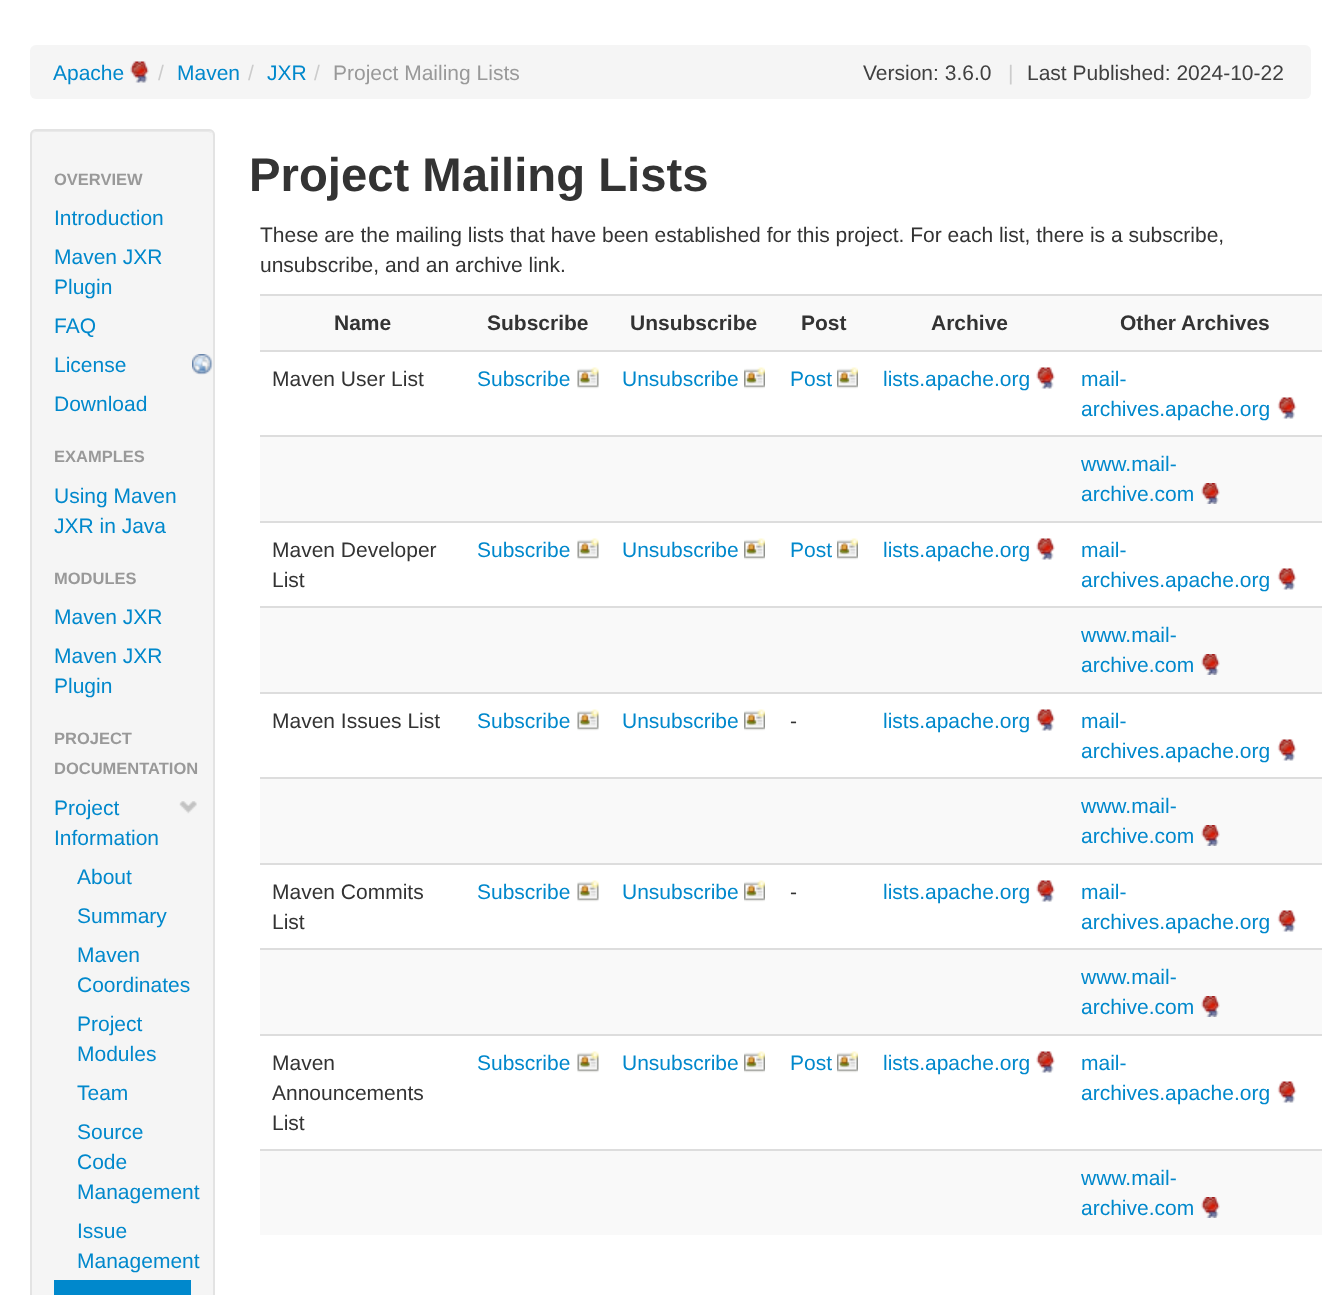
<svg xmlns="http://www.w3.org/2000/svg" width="1340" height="1295">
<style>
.a{font:21px Liberation Sans;fill:#08c}
.b{font:21px Liberation Sans;fill:#ccc}
.c{font:21px Liberation Sans;fill:#999}
.d{font:21px Liberation Sans;fill:#404040}
.e{font:bold 16.5px Liberation Sans;fill:#999}
.f{font:bold 47.25px Liberation Sans;fill:#333}
.g{font:21px Liberation Sans;fill:#333}
.h{font:bold 21px Liberation Sans;fill:#333}
</style>
<rect width="100%" height="100%" fill="#fff"/>
<rect fill="#f5f5f5" x="30" y="45" width="1281" height="54" rx="6"/>
<image href="1.png" x="130" y="61" width="19" height="22"/>
<rect fill="#f5f5f5" x="30" y="129" width="185" height="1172" rx="6"/>
<path fill="#e9e9e9" d="M36 132h172l4 1l1 3c0-3-2-5-5-5h-171c-3 0-5 2-5 5c0-2 2-4 4-4z"/>
<rect fill="none" stroke="#e3e3e3" stroke-width="2" x="31" y="130" width="183" height="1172" rx="5"/>
<image href="2.png" x="192" y="354" width="21" height="21"/>
<image href="3.png" x="179" y="801" width="18" height="13"/>
<path fill="#08c" d="M54 1280h137v15H54z"/>
<path fill="#f9f9f9" d="M260 296h1062v54H260z"/>
<path fill="#ddd" d="M260 294h1062v2H260z"/>
<image href="4.png" x="577" y="367" width="22" height="22"/>
<image href="5.png" x="744" y="367" width="21" height="22"/>
<image href="6.png" x="837" y="367" width="21" height="22"/>
<image href="7.png" x="1036" y="367" width="19" height="22"/>
<path fill="#ddd" d="M260 350h1062v2H260z"/>
<image href="8.png" x="1277" y="397" width="20" height="22"/>
<path fill="#f9f9f9" d="M260 437h1062v84H260z"/>
<path fill="#ddd" d="M260 435h1062v2H260z"/>
<image href="9.png" x="1201" y="483" width="19" height="21"/>
<image href="4.png" x="577" y="538" width="22" height="22"/>
<image href="5.png" x="744" y="538" width="21" height="22"/>
<image href="6.png" x="837" y="538" width="21" height="22"/>
<image href="7.png" x="1036" y="538" width="19" height="22"/>
<path fill="#ddd" d="M260 521h1062v2H260z"/>
<image href="8.png" x="1277" y="568" width="20" height="22"/>
<path fill="#f9f9f9" d="M260 608h1062v84H260z"/>
<path fill="#ddd" d="M260 606h1062v2H260z"/>
<image href="9.png" x="1201" y="654" width="19" height="21"/>
<image href="4.png" x="577" y="709" width="22" height="22"/>
<image href="5.png" x="744" y="709" width="21" height="22"/>
<image href="7.png" x="1036" y="709" width="19" height="22"/>
<path fill="#ddd" d="M260 692h1062v2H260z"/>
<image href="8.png" x="1277" y="739" width="20" height="22"/>
<path fill="#f9f9f9" d="M260 779h1062v84H260z"/>
<path fill="#ddd" d="M260 777h1062v2H260z"/>
<image href="9.png" x="1201" y="825" width="19" height="21"/>
<image href="4.png" x="577" y="880" width="22" height="22"/>
<image href="5.png" x="744" y="880" width="21" height="22"/>
<image href="7.png" x="1036" y="880" width="19" height="22"/>
<path fill="#ddd" d="M260 863h1062v2H260z"/>
<image href="8.png" x="1277" y="910" width="20" height="22"/>
<path fill="#f9f9f9" d="M260 950h1062v84H260z"/>
<path fill="#ddd" d="M260 948h1062v2H260z"/>
<image href="9.png" x="1201" y="996" width="19" height="21"/>
<image href="4.png" x="577" y="1051" width="22" height="22"/>
<image href="5.png" x="744" y="1051" width="21" height="22"/>
<image href="6.png" x="837" y="1051" width="21" height="22"/>
<image href="7.png" x="1036" y="1051" width="19" height="22"/>
<path fill="#ddd" d="M260 1034h1062v2H260z"/>
<image href="8.png" x="1277" y="1081" width="20" height="22"/>
<path fill="#f9f9f9" d="M260 1151h1062v84H260z"/>
<path fill="#ddd" d="M260 1149h1062v2H260z"/>
<image href="9.png" x="1201" y="1197" width="19" height="21"/>
<text class="a" x="53" y="80">Apache</text>
<text class="b" x="158" y="80">/</text>
<text class="a" x="177" y="80">Maven</text>
<text class="b" x="248" y="80">/</text>
<text class="a" x="267" y="80">JXR</text>
<text class="b" x="314" y="80">/</text>
<text class="c" x="333" y="80">Project Mailing Lists</text>
<text class="d" x="863" y="80">Version: 3.6.0</text>
<text class="b" x="1008" y="80">|</text>
<text class="d" x="1027" y="80">Last Published: 2024-10-22</text>
<text class="e" x="54" y="185">OVERVIEW</text>
<text class="a" x="54" y="225">Introduction</text>
<text class="a" x="54" y="264">Maven JXR</text>
<text class="a" x="54" y="294">Plugin</text>
<text class="a" x="54" y="333">FAQ</text>
<text class="a" x="54" y="372">License</text>
<text class="a" x="54" y="411">Download</text>
<text class="e" x="54" y="462">EXAMPLES</text>
<text class="a" x="54" y="503">Using Maven</text>
<text class="a" x="54" y="533">JXR in Java</text>
<text class="e" x="54" y="584">MODULES</text>
<text class="a" x="54" y="624">Maven JXR</text>
<text class="a" x="54" y="663">Maven JXR</text>
<text class="a" x="54" y="693">Plugin</text>
<text class="e" x="54" y="744">PROJECT</text>
<text class="e" x="54" y="774">DOCUMENTATION</text>
<text class="a" x="54" y="815">Project</text>
<text class="a" x="54" y="845">Information</text>
<text class="a" x="77" y="884">About</text>
<text class="a" x="77" y="923">Summary</text>
<text class="a" x="77" y="962">Maven</text>
<text class="a" x="77" y="992">Coordinates</text>
<text class="a" x="77" y="1031">Project</text>
<text class="a" x="77" y="1061">Modules</text>
<text class="a" x="77" y="1100">Team</text>
<text class="a" x="77" y="1139">Source</text>
<text class="a" x="77" y="1169">Code</text>
<text class="a" x="77" y="1199">Management</text>
<text class="a" x="77" y="1238">Issue</text>
<text class="a" x="77" y="1268">Management</text>
<text class="f" x="249" y="191">Project Mailing Lists</text>
<text class="g" x="260" y="242">These are the mailing lists that have been established for this project. For each list, there is a subscribe,</text>
<text class="g" x="260" y="272">unsubscribe, and an archive link.</text>
<text class="h" x="334" y="330">Name</text>
<text class="h" x="487" y="330">Subscribe</text>
<text class="h" x="630" y="330">Unsubscribe</text>
<text class="h" x="801" y="330">Post</text>
<text class="h" x="931" y="330">Archive</text>
<text class="h" x="1120" y="330">Other Archives</text>
<text class="g" x="272" y="386">Maven User List</text>
<text class="a" x="477" y="386">Subscribe</text>
<text class="a" x="622" y="386">Unsubscribe</text>
<text class="a" x="790" y="386">Post</text>
<text class="a" x="883" y="386">lists.apache.org</text>
<text class="a" x="1081" y="386">mail-</text>
<text class="a" x="1081" y="416">archives.apache.org</text>
<text class="a" x="1081" y="471">www.mail-</text>
<text class="a" x="1081" y="501">archive.com</text>
<text class="g" x="272" y="557">Maven Developer</text>
<text class="g" x="272" y="587">List</text>
<text class="a" x="477" y="557">Subscribe</text>
<text class="a" x="622" y="557">Unsubscribe</text>
<text class="a" x="790" y="557">Post</text>
<text class="a" x="883" y="557">lists.apache.org</text>
<text class="a" x="1081" y="557">mail-</text>
<text class="a" x="1081" y="587">archives.apache.org</text>
<text class="a" x="1081" y="642">www.mail-</text>
<text class="a" x="1081" y="672">archive.com</text>
<text class="g" x="272" y="728">Maven Issues List</text>
<text class="a" x="477" y="728">Subscribe</text>
<text class="a" x="622" y="728">Unsubscribe</text>
<text class="g" x="790" y="728">-</text>
<text class="a" x="883" y="728">lists.apache.org</text>
<text class="a" x="1081" y="728">mail-</text>
<text class="a" x="1081" y="758">archives.apache.org</text>
<text class="a" x="1081" y="813">www.mail-</text>
<text class="a" x="1081" y="843">archive.com</text>
<text class="g" x="272" y="899">Maven Commits</text>
<text class="g" x="272" y="929">List</text>
<text class="a" x="477" y="899">Subscribe</text>
<text class="a" x="622" y="899">Unsubscribe</text>
<text class="g" x="790" y="899">-</text>
<text class="a" x="883" y="899">lists.apache.org</text>
<text class="a" x="1081" y="899">mail-</text>
<text class="a" x="1081" y="929">archives.apache.org</text>
<text class="a" x="1081" y="984">www.mail-</text>
<text class="a" x="1081" y="1014">archive.com</text>
<text class="g" x="272" y="1070">Maven</text>
<text class="g" x="272" y="1100">Announcements</text>
<text class="g" x="272" y="1130">List</text>
<text class="a" x="477" y="1070">Subscribe</text>
<text class="a" x="622" y="1070">Unsubscribe</text>
<text class="a" x="790" y="1070">Post</text>
<text class="a" x="883" y="1070">lists.apache.org</text>
<text class="a" x="1081" y="1070">mail-</text>
<text class="a" x="1081" y="1100">archives.apache.org</text>
<text class="a" x="1081" y="1185">www.mail-</text>
<text class="a" x="1081" y="1215">archive.com</text>
</svg>
